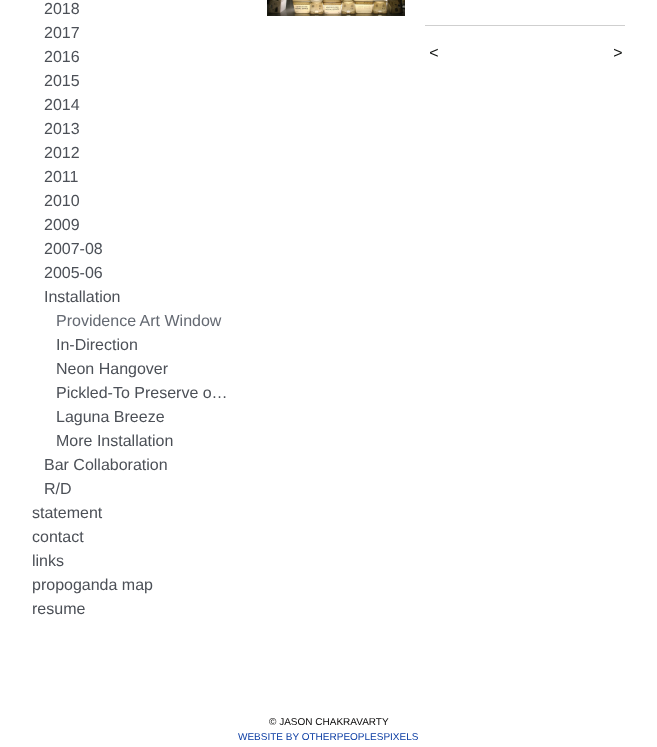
<svg xmlns="http://www.w3.org/2000/svg" width="657" height="747">
<style>
.a{font:16px Liberation Sans;fill:#4c5057}
.b{font:16px Liberation Sans;fill:#646972}
.c{font:italic 16px Liberation Sans;letter-spacing:1px;fill:#0e100e}
.d{font:10px Liberation Sans;fill:#080707}
.e{font:10px Liberation Sans;fill:#0a3ca3}
</style>
<rect width="100%" height="100%" fill="#fff"/>
<image href="1.png" x="267" y="0" width="138" height="16"/>
<path fill="#cfcfcf" d="M425 25h200v1H425z"/>
<text class="a" x="44" y="14">2018</text>
<text class="a" x="44" y="38">2017</text>
<text class="a" x="44" y="62">2016</text>
<text class="a" x="44" y="86">2015</text>
<text class="a" x="44" y="110">2014</text>
<text class="a" x="44" y="134">2013</text>
<text class="a" x="44" y="158">2012</text>
<text class="a" x="44" y="182">2011</text>
<text class="a" x="44" y="206">2010</text>
<text class="a" x="44" y="230">2009</text>
<text class="a" x="44" y="254">2007-08</text>
<text class="a" x="44" y="278">2005-06</text>
<text class="a" x="44" y="302">Installation</text>
<text class="b" x="56" y="326">Providence Art Window</text>
<text class="a" x="56" y="350">In-Direction</text>
<text class="a" x="56" y="374">Neon Hangover</text>
<text class="a" x="56" y="398">Pickled-To Preserve o…</text>
<text class="a" x="56" y="422">Laguna Breeze</text>
<text class="a" x="56" y="446">More Installation</text>
<text class="a" x="44" y="470">Bar Collaboration</text>
<text class="a" x="44" y="494">R/D</text>
<text class="a" x="32" y="518">statement</text>
<text class="a" x="32" y="542">contact</text>
<text class="a" x="32" y="566">links</text>
<text class="a" x="32" y="590">propoganda map</text>
<text class="a" x="32" y="614">resume</text>
<text class="c" x="429" y="58">&lt;</text>
<text class="c" x="613" y="58">&gt;</text>
<text class="d" x="269" y="725">© JASON CHAKRAVARTY</text>
<text class="e" x="238" y="740">WEBSITE BY OTHERPEOPLESPIXELS</text>
</svg>
